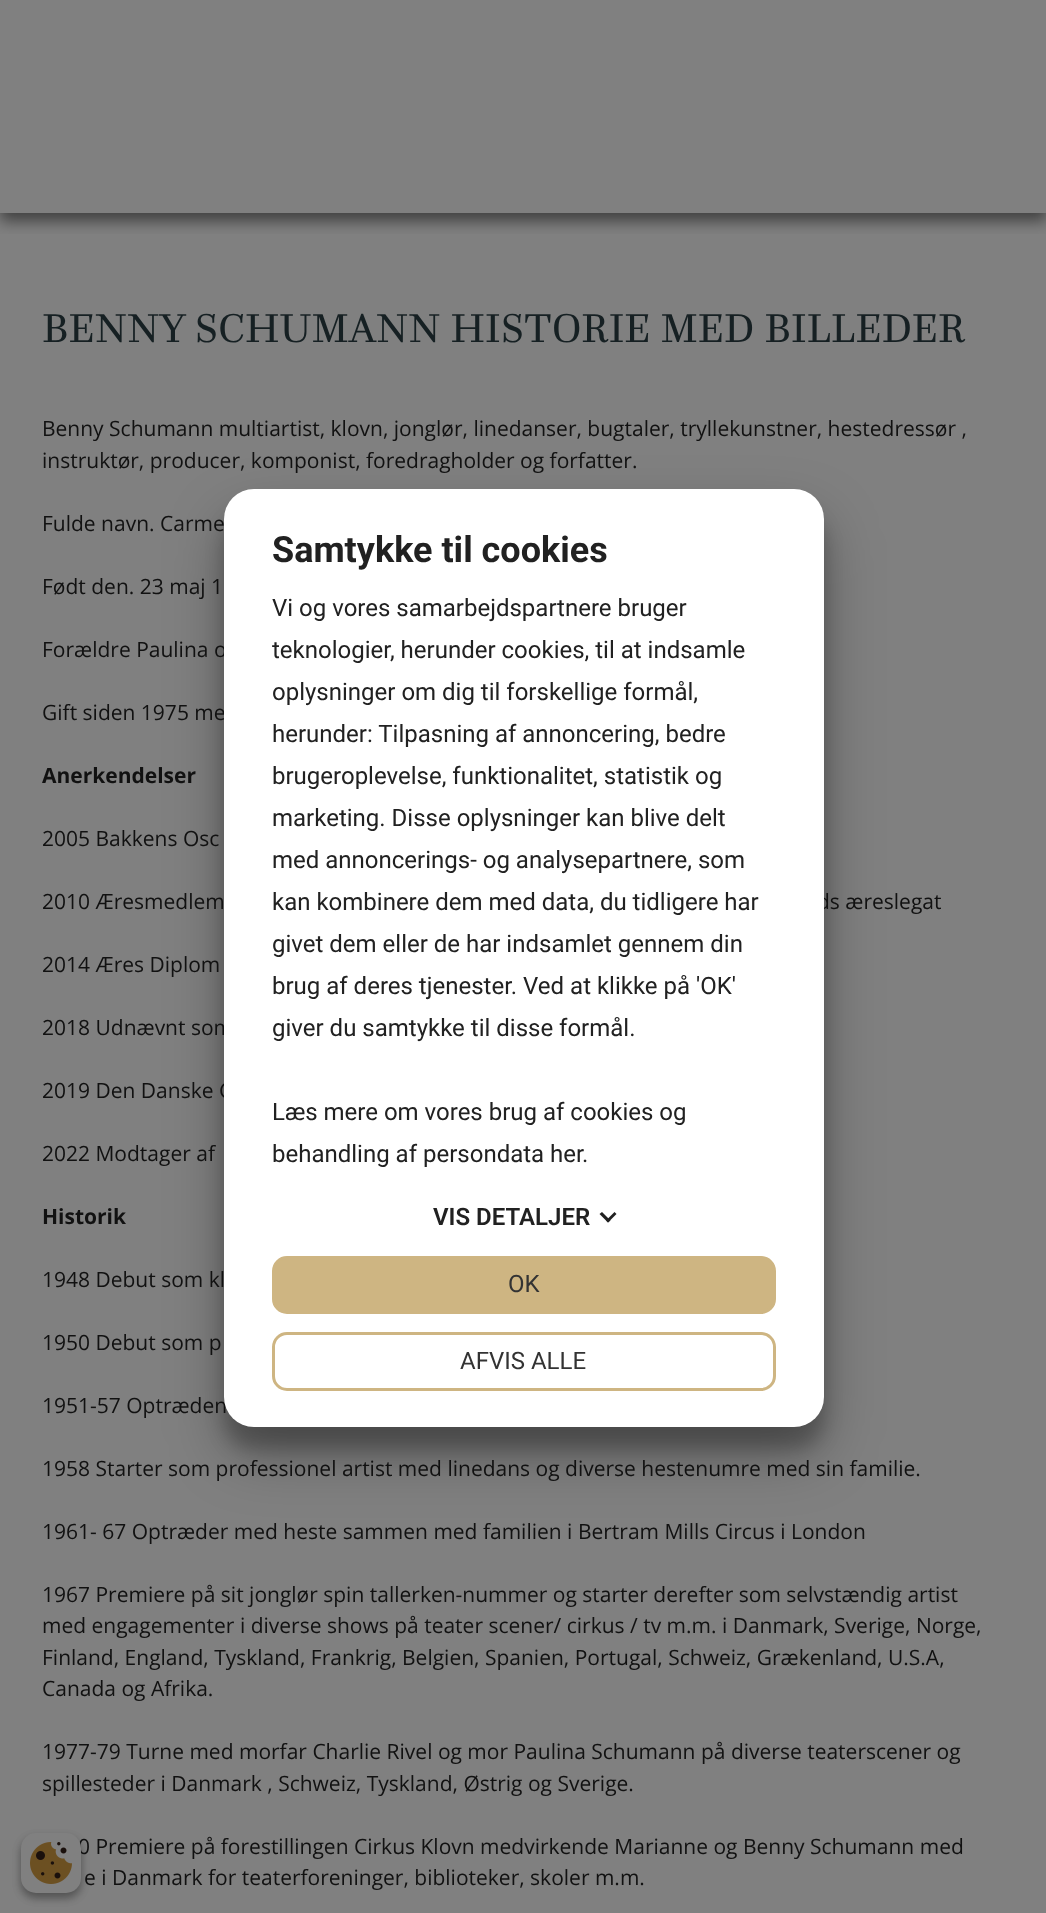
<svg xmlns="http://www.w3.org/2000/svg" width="1046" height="1913">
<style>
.a{font:42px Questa;fill:#162023}
.b{font:21px Open Sans;fill:#111}
.c{font:bold 21px Open Sans;fill:#111}
.d{font:bold 36px Roboto;fill:#212121}
.e{font:24px Roboto;fill:#212121}
.f{font:600 24px Roboto;fill:#212121}
.g{font:24px Roboto;fill:#333}
</style>
<defs>
<clipPath id="clip1"><path d="M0 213h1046v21H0z"/></clipPath>
</defs>
<rect width="100%" height="100%" fill="#808080"/>
<g clip-path="url(#clip1)">
<path fill="#00000080" filter="blur(7.5px)" d="M0 8h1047v213H0z"/>
</g>
<rect fill="#00000038" filter="blur(9px)" x="224" y="512" width="600" height="937" rx="30"/>
<rect fill="#0000004d" filter="blur(28.5px)" x="224" y="518" width="600" height="937" rx="30"/>
<rect fill="#0000003b" filter="blur(4.5px)" x="21" y="1838" width="60" height="60" rx="15"/>
<rect fill="#00000029" filter="blur(4.5px)" x="21" y="1838" width="60" height="60" rx="15"/>
<text class="a" x="42" y="342">BENNY SCHUMANN HISTORIE MED BILLEDER</text>
<text class="b" x="42" y="436">Benny Schumann multiartist, klovn, jonglør, linedanser, bugtaler, tryllekunstner, hestedressør ,</text>
<text class="b" x="42" y="468">instruktør, producer, komponist, foredragholder og forfatter.</text>
<text class="b" x="42" y="531">Fulde navn. Carme</text>
<text class="b" x="42" y="594">Født den. 23 maj 1</text>
<text class="b" x="42" y="657">Forældre Paulina o</text>
<text class="b" x="42" y="720">Gift siden 1975 me</text>
<text class="c" x="42" y="783">Anerkendelser</text>
<text class="b" x="42" y="846">2005 Bakkens Osc</text>
<text class="b" x="42" y="909">2010 Æresmedlem</text>
<text class="b" x="817" y="909">ds æreslegat</text>
<text class="b" x="42" y="972">2014 Æres Diplom</text>
<text class="b" x="42" y="1035">2018 Udnævnt som</text>
<text class="b" x="42" y="1098">2019 Den Danske C</text>
<text class="b" x="42" y="1161">2022 Modtager af</text>
<text class="c" x="42" y="1224">Historik</text>
<text class="b" x="42" y="1287">1948 Debut som kl</text>
<text class="b" x="42" y="1350">1950 Debut som p</text>
<text class="b" x="42" y="1413">1951-57 Optræden</text>
<text class="b" x="42" y="1476">1958 Starter som professionel artist med linedans og diverse hestenumre med sin familie.</text>
<text class="b" x="42" y="1539">1961- 67 Optræder med heste sammen med familien i Bertram Mills Circus i London</text>
<text class="b" x="42" y="1602">1967 Premiere på sit jonglør spin tallerken-nummer og starter derefter som selvstændig artist</text>
<text class="b" x="42" y="1633">med engagementer i diverse shows på teater scener/ cirkus / tv m.m. i Danmark, Sverige, Norge,</text>
<text class="b" x="42" y="1665">Finland, England, Tyskland, Frankrig, Belgien, Spanien, Portugal, Schweiz, Grækenland, U.S.A,</text>
<text class="b" x="42" y="1696">Canada og Afrika.</text>
<text class="b" x="42" y="1759">1977-79 Turne med morfar Charlie Rivel og mor Paulina Schumann på diverse teaterscener og</text>
<text class="b" x="42" y="1791">spillesteder i Danmark , Schweiz, Tyskland, Østrig og Sverige.</text>
<text class="b" x="78" y="1854">0 Premiere på forestillingen Cirkus Klovn medvirkende Marianne og Benny Schumann med</text>
<text class="b" x="84" y="1885">e i Danmark for teaterforeninger, biblioteker, skoler m.m.</text>
<rect fill="#fff" x="224" y="489" width="600" height="938" rx="30"/>
<text class="d" x="272" y="562">Samtykke til cookies</text>
<text class="e" x="272" y="616">Vi og vores samarbejdspartnere bruger</text>
<text class="e" x="272" y="658">teknologier, herunder cookies, til at indsamle</text>
<text class="e" x="272" y="700">oplysninger om dig til forskellige formål,</text>
<text class="e" x="272" y="742">herunder: Tilpasning af annoncering, bedre</text>
<text class="e" x="272" y="784">brugeroplevelse, funktionalitet, statistik og</text>
<text class="e" x="272" y="826">marketing. Disse oplysninger kan blive delt</text>
<text class="e" x="272" y="868">med annoncerings- og analysepartnere, som</text>
<text class="e" x="272" y="910">kan kombinere dem med data, du tidligere har</text>
<text class="e" x="272" y="952">givet dem eller de har indsamlet gennem din</text>
<text class="e" x="272" y="994">brug af deres tjenester. Ved at klikke på 'OK'</text>
<text class="e" x="272" y="1036">giver du samtykke til disse formål.</text>
<text class="e" x="272" y="1120">Læs mere om vores brug af cookies og</text>
<text class="e" x="272" y="1162">behandling af persondata her</text>
<text class="e" x="582" y="1162">.</text>
<text class="f" x="433" y="1225">VIS DETALJER</text>
<path fill="#212121" d="M614.5 1212l2 2l-8.5 8.5l-2-2z"/>
<path fill="#212121" d="M602 1212l8.5 8.5l-2.5 2l-8.5-8.5z"/>
<rect fill="#ceb582" stroke="#ceb582" stroke-width="3" x="273.5" y="1257.5" width="501" height="55" rx="13.5"/>
<text class="g" x="508" y="1292">OK</text>
<rect fill="none" stroke="#ceb582" stroke-width="3" x="273.5" y="1333.5" width="501" height="56" rx="13.5"/>
<text class="g" x="460" y="1369">AFVIS ALLE</text>
<rect fill="#808080" x="21" y="1833" width="60" height="60" rx="15"/>
<image href="1.png" x="30" y="1842" width="42" height="42"/>
</svg>
